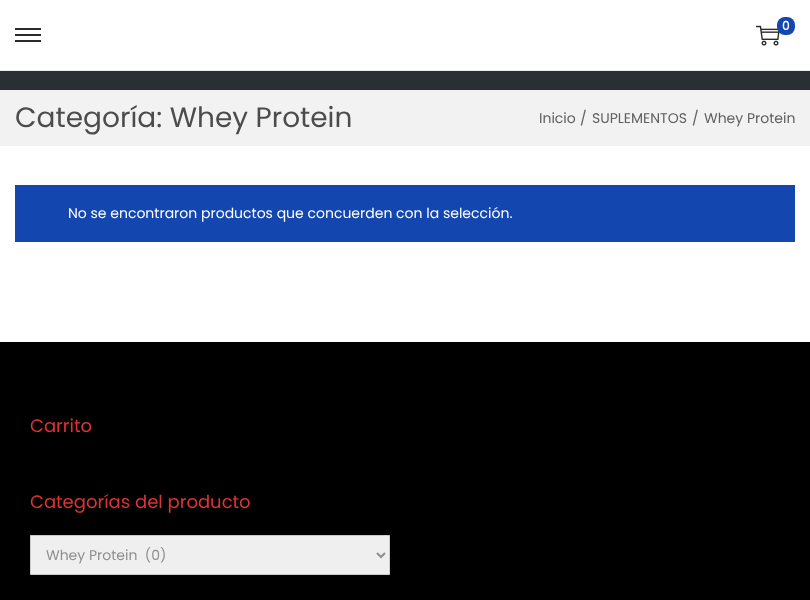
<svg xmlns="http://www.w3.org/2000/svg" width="810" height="600">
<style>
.a{font:bold 12px Poppins;fill:#fff}
.b{font:28px Poppins;fill:#4c4c4c}
.c{font:14px Poppins;fill:#606060}
.d{font:14px Poppins;fill:#fff}
.e{font:18px Poppins;fill:#d33}
.f{font:14px Poppins;fill:#8f8f8f}
</style>
<rect width="100%" height="100%" fill="#fff"/>
<path fill="#eaeaea" d="M0 70h810v1H0z"/>
<image href="1.png" x="756" y="25" width="24" height="21"/>
<rect fill="#1346af" x="777" y="17" width="18" height="18" rx="8"/>
<path fill="#2b2b2b" d="M15 34h26v2H15z"/>
<path fill="#2b2b2b" d="M15 28h26v2H15z"/>
<path fill="#2b2b2b" d="M15 40h26v2H15z"/>
<path fill="#292f34" d="M0 71h810v19H0z"/>
<path fill="#f2f2f2" d="M0 90h810v56H0z"/>
<path fill="#1346af" d="M15 185h780v57H15z"/>
<path fill="#000" d="M0 342h810v258H0z"/>
<path fill="#efefef" stroke="#ccc" d="M30.5 535.5h359v39H30.5z"/>
<path fill="none" stroke="#8f8f8f" stroke-width="2" d="M377 553l4 4l4-4"/>
<text class="a" x="782" y="30">0</text>
<text class="b" x="15" y="127">Categoría: Whey Protein</text>
<text class="c" x="539" y="123">Inicio</text>
<text class="c" x="580" y="123">/</text>
<text class="c" x="592" y="123">SUPLEMENTOS</text>
<text class="c" x="692" y="123">/</text>
<text class="c" x="704" y="123">Whey Protein</text>
<text class="d" x="68" y="218">No se encontraron productos que concuerden con la selección.</text>
<text class="e" x="30" y="432">Carrito</text>
<text class="e" x="30" y="508">Categorías del producto</text>
<text class="f" xml:space="preserve" x="46" y="560">Whey Protein  (0)</text>
</svg>
